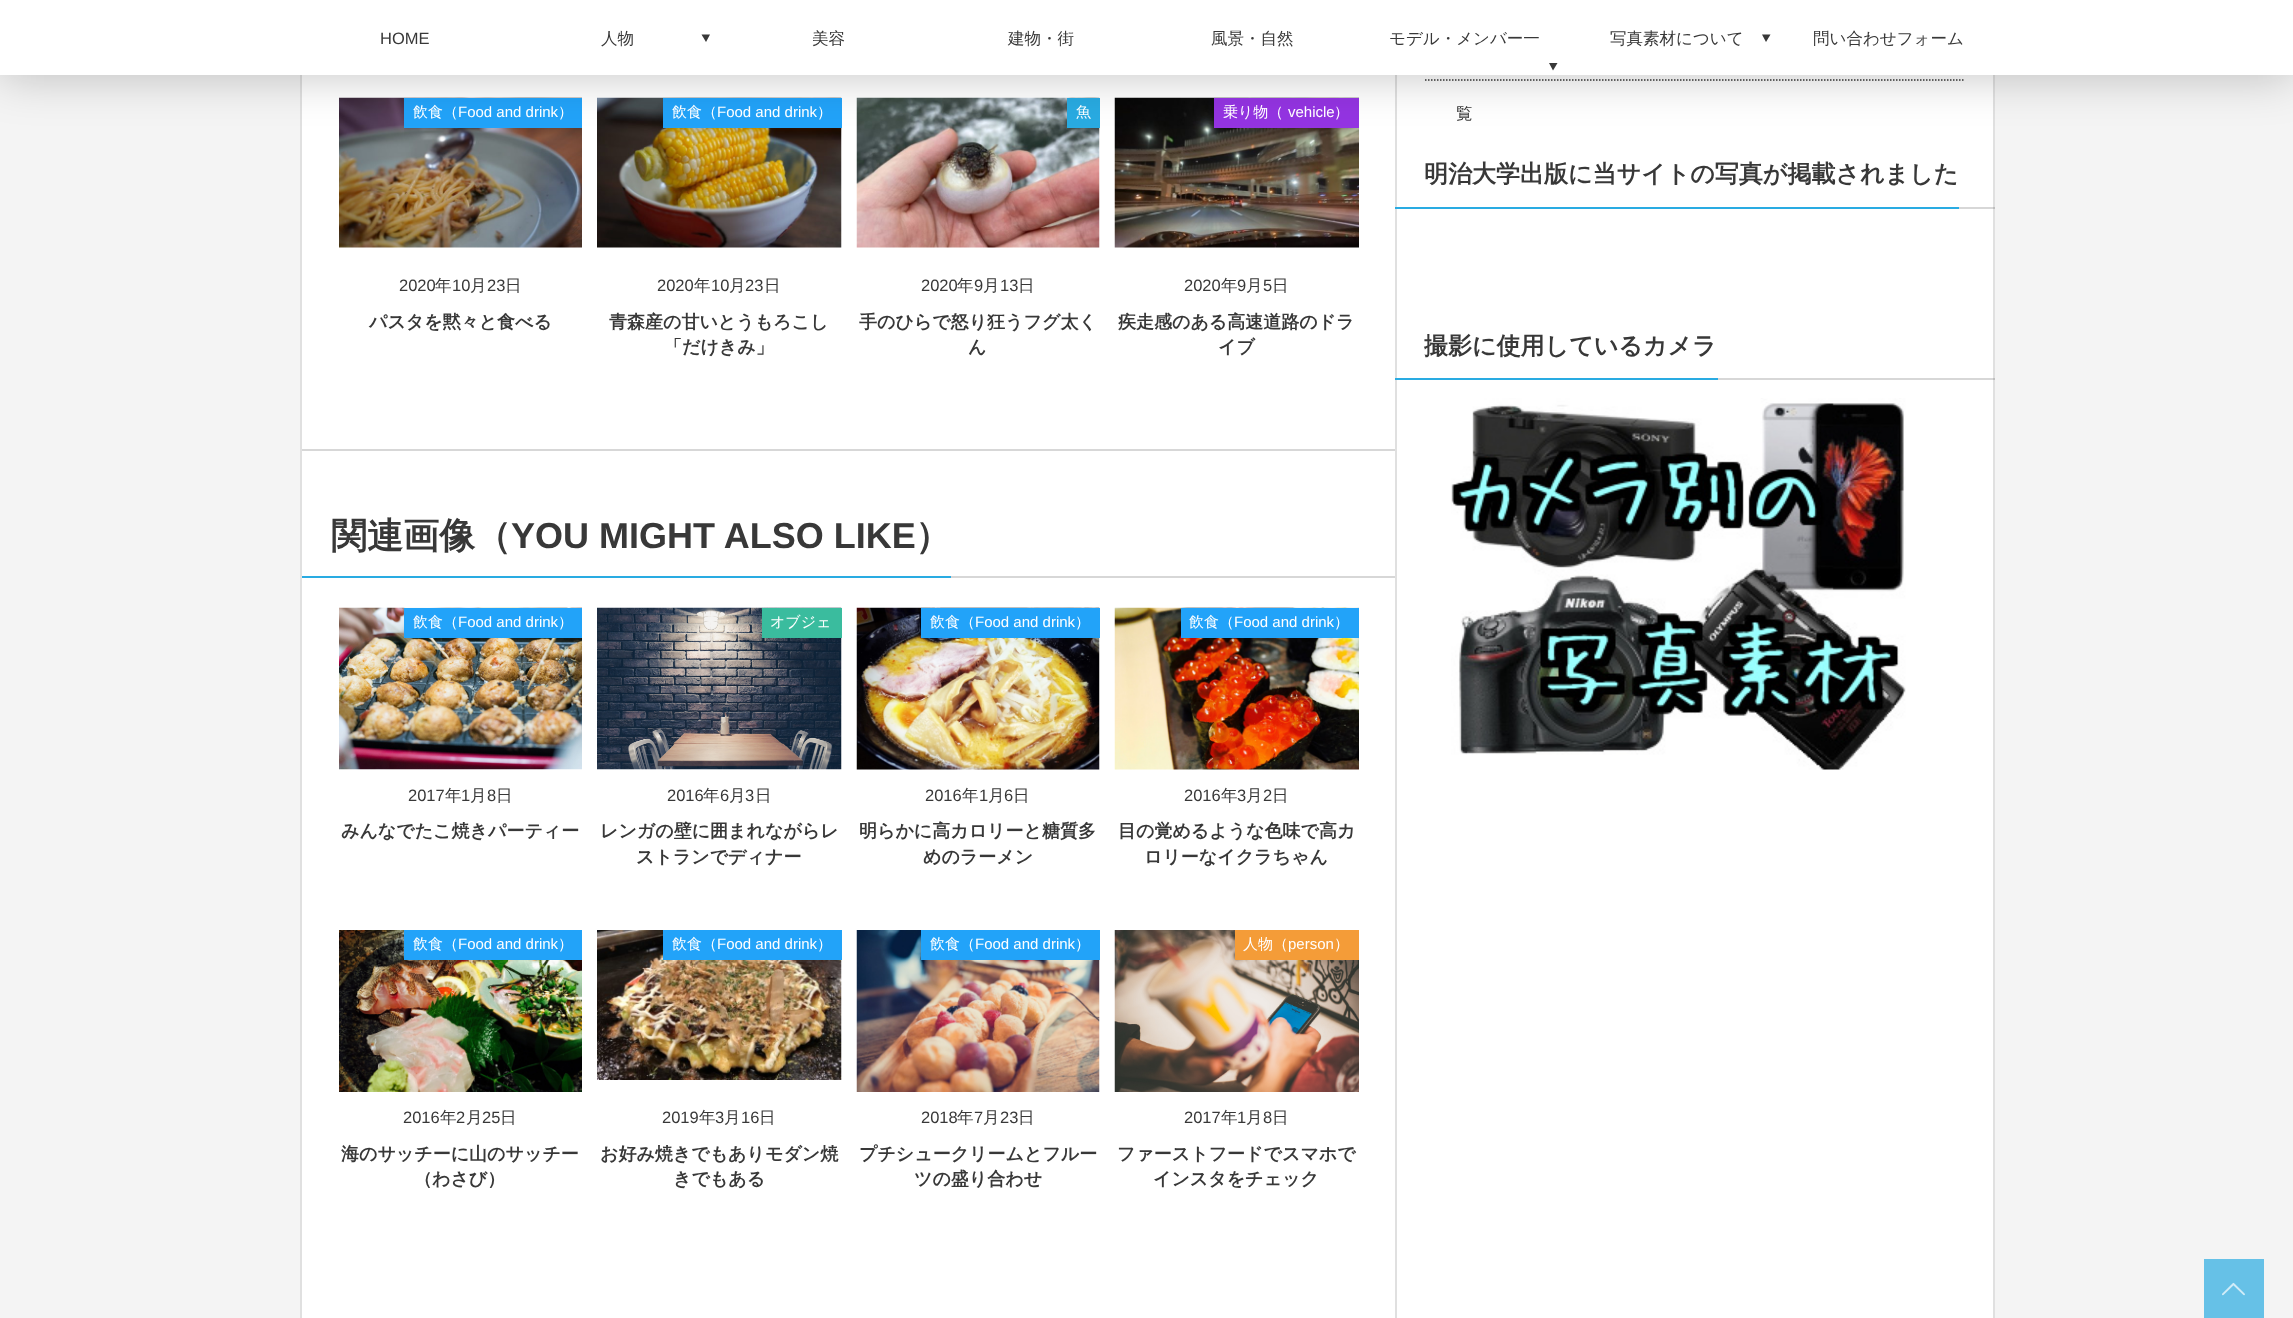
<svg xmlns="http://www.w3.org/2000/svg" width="2293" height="1318">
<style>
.a{font:16.5px Liberation Sans;fill:#383838}
.b{font:500 16.5px WenQuanYi Zen Hei;fill:#383838}
.c{font:500 15px WenQuanYi Zen Hei;fill:#fff}
.d{font:15px Liberation Sans;fill:#fff}
.e{font:bold 18px WenQuanYi Zen Hei;fill:#383838}
.f{font:bold 36px WenQuanYi Zen Hei;fill:#383838}
.g{font:bold 36px Liberation Sans;fill:#383838}
.h{font:bold 24px WenQuanYi Zen Hei;fill:#383838}
</style>
<defs>
<clipPath id="clip1"><path d="M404 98h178v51H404z"/></clipPath>
<clipPath id="clip2"><path d="M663 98h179v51H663z"/></clipPath>
<clipPath id="clip3"><path d="M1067 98h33v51H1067z"/></clipPath>
<clipPath id="clip4"><path d="M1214 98h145v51H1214z"/></clipPath>
</defs>
<rect width="100%" height="100%" fill="#f4f4f4"/>
<path fill="#fff" d="M302 75h1691v1243H302z"/>
<path fill="#d7d7d7" d="M951 576h446v2H951z"/>
<path fill="#d7d7d7" d="M302 449h1095v2H302z"/>
<path fill="none" stroke="#e0e0e0" stroke-width="2" d="M301 -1h1693v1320H301z"/>
<image href="1.png" x="339" y="97" width="243" height="151"/>
<image href="2.png" x="597" y="97" width="245" height="151"/>
<g clip-path="url(#clip1)">
<path fill="#0000003d" filter="blur(6px)" d="M404 98h178v30H404z"/>
</g>
<path fill="#22a3f9" d="M404 98h178v30H404z"/>
<image href="3.png" x="856" y="97" width="244" height="151"/>
<g clip-path="url(#clip2)">
<path fill="#0000003d" filter="blur(6px)" d="M663 98h179v30H663z"/>
</g>
<path fill="#22a3f9" d="M663 98h179v30H663z"/>
<image href="4.png" x="1114" y="97" width="245" height="151"/>
<g clip-path="url(#clip3)">
<path fill="#0000003d" filter="blur(6px)" d="M1067 98h33v30H1067z"/>
</g>
<path fill="#29abe2" d="M1067 98h33v30H1067z"/>
<g clip-path="url(#clip4)">
<path fill="#0000003d" filter="blur(6px)" d="M1214 98h145v30H1214z"/>
</g>
<path fill="#9434e2" d="M1214 98h145v30H1214z"/>
<path fill="#e0e0e0" d="M1395 75h2v1243H1395z"/>
<path fill="none" stroke="#383838" stroke-width="1.5" stroke-dasharray="1.5 1.5" d="M1425 80h540"/>
<path fill="#0000003d" filter="blur(24px)" d="M0 0h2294v75H0z"/>
<path fill="#fff" d="M0 0h2293v75H0z"/>
<path fill="#383838" d="M710 34.5h-8.5l4.5 7.5z"/>
<path fill="#383838" d="M1557.5 63h-8.5l4 7.5z"/>
<path fill="#383838" d="M1770.5 34.5h-8.5l4 7.5z"/>
<path fill="#29abe2" d="M302 576h649v2H302z"/>
<image href="5.png" x="339" y="607" width="243" height="163"/>
<path fill="#22a3f9" d="M404 608h178v30H404z"/>
<image href="6.png" x="597" y="607" width="245" height="163"/>
<path fill="#3abc9e" d="M762 608h80v30H762z"/>
<image href="7.png" x="856" y="607" width="244" height="163"/>
<path fill="#22a3f9" d="M921 608h179v30H921z"/>
<image href="8.png" x="1114" y="607" width="245" height="163"/>
<path fill="#22a3f9" d="M1181 608h178v30H1181z"/>
<image href="9.png" x="339" y="930" width="243" height="162"/>
<path fill="#22a3f9" d="M404 930h178v30H404z"/>
<image href="10.png" x="597" y="930" width="245" height="150"/>
<path fill="#22a3f9" d="M663 930h179v30H663z"/>
<image href="11.png" x="856" y="930" width="244" height="162"/>
<path fill="#22a3f9" d="M921 930h179v30H921z"/>
<image href="12.png" x="1114" y="930" width="245" height="162"/>
<path fill="#f49c38" d="M1235 930h124v30H1235z"/>
<path fill="#38383833" d="M1959 207h36v2H1959z"/>
<path fill="#29abe2" d="M1395 207h564v2H1395z"/>
<path fill="#38383833" d="M1718 378h277v2H1718z"/>
<path fill="#29abe2" d="M1395 378h323v2H1395z"/>
<image href="13.png" x="1451" y="398" width="455" height="372"/>
<path fill="#66c1e7" d="M2204 1259h60v59H2204z"/>
<image href="14.png" x="2222" y="1282" width="23" height="14"/>
<text class="a" x="380" y="44">HOME</text>
<text class="b" x="601" y="44">人物</text>
<text class="b" x="812" y="44">美容</text>
<text class="b" x="1008" y="44">建物・街</text>
<text class="b" x="1211" y="44">風景・自然</text>
<text class="b" x="1389" y="44">モデル・メンバー一</text>
<text class="b" x="1456" y="119">覧</text>
<text class="b" x="1610" y="44">写真素材について</text>
<text class="b" x="1813" y="44">問い合わせフォーム</text>
<text class="c" x="413" y="117">飲食（</text>
<text class="d" x="458" y="117">Food and drink</text>
<text class="c" x="558" y="117">）</text>
<text class="a" x="399" y="291">2020</text>
<text class="b" x="435" y="291">年</text>
<text class="a" x="452" y="291">10</text>
<text class="b" x="470" y="291">月</text>
<text class="a" x="487" y="291">23</text>
<text class="b" x="505" y="291">日</text>
<text class="e" x="369" y="328">パスタを黙々と食べる</text>
<text class="c" x="672" y="117">飲食（</text>
<text class="d" x="717" y="117">Food and drink</text>
<text class="c" x="817" y="117">）</text>
<text class="a" x="657" y="291">2020</text>
<text class="b" x="694" y="291">年</text>
<text class="a" x="711" y="291">10</text>
<text class="b" x="729" y="291">月</text>
<text class="a" x="745" y="291">23</text>
<text class="b" x="764" y="291">日</text>
<text class="e" x="609" y="328">青森産の甘いとうもろこし</text>
<text class="e" x="664" y="353">「だけきみ」</text>
<text class="c" x="1076" y="117">魚</text>
<text class="a" x="921" y="291">2020</text>
<text class="b" x="957" y="291">年</text>
<text class="a" x="974" y="291">9</text>
<text class="b" x="983" y="291">月</text>
<text class="a" x="1000" y="291">13</text>
<text class="b" x="1018" y="291">日</text>
<text class="e" x="859" y="328">手のひらで怒り狂うフグ太く</text>
<text class="e" x="968" y="353">ん</text>
<text class="c" x="1223" y="117">乗り物（</text>
<text class="d" x="1288" y="117">vehicle</text>
<text class="c" x="1334" y="117">）</text>
<text class="a" x="1184" y="291">2020</text>
<text class="b" x="1221" y="291">年</text>
<text class="a" x="1237" y="291">9</text>
<text class="b" x="1246" y="291">月</text>
<text class="a" x="1263" y="291">5</text>
<text class="b" x="1272" y="291">日</text>
<text class="e" x="1118" y="328">疾走感のある高速道路のドラ</text>
<text class="e" x="1218" y="353">イブ</text>
<text class="f" x="331" y="548">関連画像（</text>
<text class="g" x="511" y="548">YOU MIGHT ALSO LIKE</text>
<text class="f" x="915" y="548">）</text>
<text class="c" x="413" y="627">飲食（</text>
<text class="d" x="458" y="627">Food and drink</text>
<text class="c" x="558" y="627">）</text>
<text class="a" x="408" y="801">2017</text>
<text class="b" x="445" y="801">年</text>
<text class="a" x="461" y="801">1</text>
<text class="b" x="470" y="801">月</text>
<text class="a" x="487" y="801">8</text>
<text class="b" x="496" y="801">日</text>
<text class="e" x="341" y="837">みんなでたこ焼きパーティー</text>
<text class="c" x="770" y="627">オブジェ</text>
<text class="a" x="667" y="801">2016</text>
<text class="b" x="703" y="801">年</text>
<text class="a" x="720" y="801">6</text>
<text class="b" x="729" y="801">月</text>
<text class="a" x="745" y="801">3</text>
<text class="b" x="755" y="801">日</text>
<text class="e" x="600" y="837">レンガの壁に囲まれながらレ</text>
<text class="e" x="636" y="863">ストランでディナー</text>
<text class="c" x="930" y="627">飲食（</text>
<text class="d" x="975" y="627">Food and drink</text>
<text class="c" x="1075" y="627">）</text>
<text class="a" x="925" y="801">2016</text>
<text class="b" x="962" y="801">年</text>
<text class="a" x="979" y="801">1</text>
<text class="b" x="988" y="801">月</text>
<text class="a" x="1004" y="801">6</text>
<text class="b" x="1013" y="801">日</text>
<text class="e" x="859" y="837">明らかに高カロリーと糖質多</text>
<text class="e" x="923" y="863">めのラーメン</text>
<text class="c" x="1189" y="627">飲食（</text>
<text class="d" x="1234" y="627">Food and drink</text>
<text class="c" x="1334" y="627">）</text>
<text class="a" x="1184" y="801">2016</text>
<text class="b" x="1221" y="801">年</text>
<text class="a" x="1237" y="801">3</text>
<text class="b" x="1246" y="801">月</text>
<text class="a" x="1263" y="801">2</text>
<text class="b" x="1272" y="801">日</text>
<text class="e" x="1118" y="837">目の覚めるような色味で高カ</text>
<text class="e" x="1144" y="863">ロリーなイクラちゃん</text>
<text class="c" x="413" y="949">飲食（</text>
<text class="d" x="458" y="949">Food and drink</text>
<text class="c" x="558" y="949">）</text>
<text class="a" x="403" y="1123">2016</text>
<text class="b" x="440" y="1123">年</text>
<text class="a" x="456" y="1123">2</text>
<text class="b" x="466" y="1123">月</text>
<text class="a" x="482" y="1123">25</text>
<text class="b" x="500" y="1123">日</text>
<text class="e" x="341" y="1160">海のサッチーに山のサッチー</text>
<text class="e" x="414" y="1185">（わさび）</text>
<text class="c" x="672" y="949">飲食（</text>
<text class="d" x="717" y="949">Food and drink</text>
<text class="c" x="817" y="949">）</text>
<text class="a" x="662" y="1123">2019</text>
<text class="b" x="699" y="1123">年</text>
<text class="a" x="715" y="1123">3</text>
<text class="b" x="724" y="1123">月</text>
<text class="a" x="741" y="1123">16</text>
<text class="b" x="759" y="1123">日</text>
<text class="e" x="600" y="1160">お好み焼きでもありモダン焼</text>
<text class="e" x="673" y="1185">きでもある</text>
<text class="c" x="930" y="949">飲食（</text>
<text class="d" x="975" y="949">Food and drink</text>
<text class="c" x="1075" y="949">）</text>
<text class="a" x="921" y="1123">2018</text>
<text class="b" x="957" y="1123">年</text>
<text class="a" x="974" y="1123">7</text>
<text class="b" x="983" y="1123">月</text>
<text class="a" x="1000" y="1123">23</text>
<text class="b" x="1018" y="1123">日</text>
<text class="e" x="859" y="1160">プチシュークリームとフルー</text>
<text class="e" x="914" y="1185">ツの盛り合わせ</text>
<text class="c" x="1243" y="949">人物（</text>
<text class="d" x="1288" y="949">person</text>
<text class="c" x="1334" y="949">）</text>
<text class="a" x="1184" y="1123">2017</text>
<text class="b" x="1221" y="1123">年</text>
<text class="a" x="1237" y="1123">1</text>
<text class="b" x="1246" y="1123">月</text>
<text class="a" x="1263" y="1123">8</text>
<text class="b" x="1272" y="1123">日</text>
<text class="e" x="1117" y="1160">ファーストフードでスマホで</text>
<text class="e" x="1153" y="1185">インスタをチェック</text>
<text class="h" x="1424" y="182">明治大学出版に当サイトの写真が掲載されました</text>
<text class="h" x="1424" y="354">撮影に使用しているカメラ</text>
</svg>
